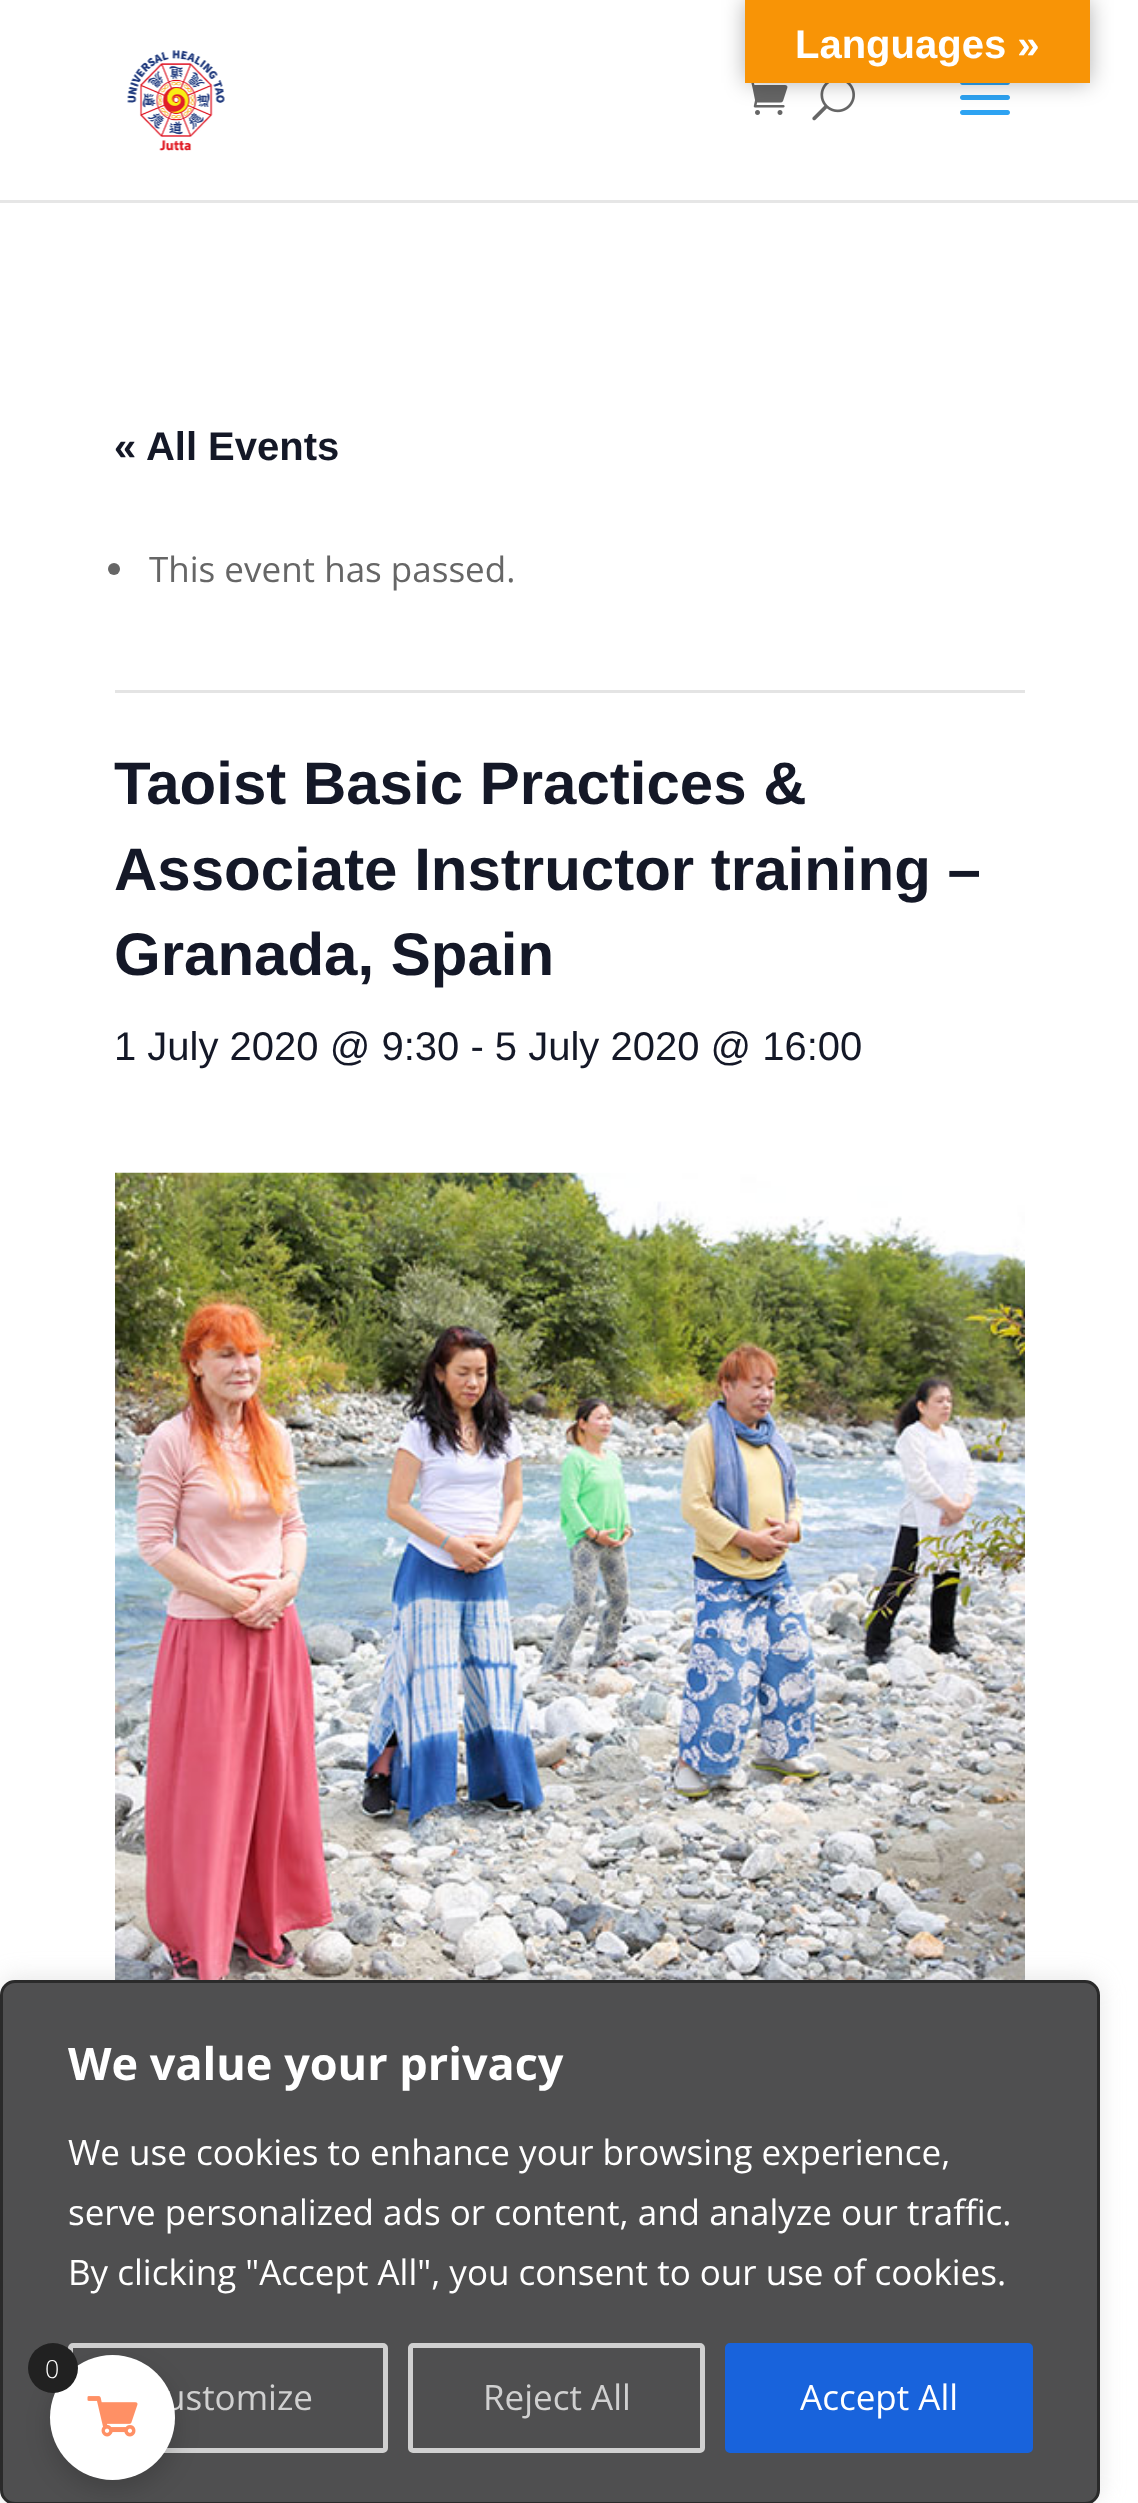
<svg xmlns="http://www.w3.org/2000/svg" width="1138" height="2503">
<style>
.a{font:bold 40px Liberation Sans;fill:#fff}
.b{font:bold 40px Liberation Sans;fill:#141827}
.c{font:35px Open Sans;fill:#666}
.d{font:bold 60px Liberation Sans;fill:#141827}
.e{font:40px Liberation Sans;fill:#141827}
.f{font:bold 45px Open Sans;fill:#fff}
.g{font:35px Open Sans;fill:#fff}
.h{font:35px Open Sans;fill:#d0d0d0}
.i{font:300 25px Open Sans;fill:#fff}
</style>
<rect width="100%" height="100%" fill="#fff"/>
<image href="2.png" x="751" y="83" width="37" height="32"/>
<image href="3.png" x="812" y="83" width="43" height="38"/>
<image href="4.png" x="960" y="83" width="50" height="32"/>
<path fill="#0000004d" filter="blur(11px)" d="M745 0h345v83H745z"/>
<path fill="#f89406" d="M745 0h345v83H745z"/>
<path fill="#e6e6e6" d="M0 200h1138v3H0z"/>
<image href="1.png" x="127" y="50" width="98" height="101"/>
<path fill="#e4e4e4" d="M115 690h910v3H115z"/>
<circle fill="#666" cx="114" cy="569" r="6"/>
<image href="5.png" x="115" y="1172" width="910" height="808"/>
<rect fill="#acabab4d" filter="blur(12.5px)" y="1978" width="1100" height="525" rx="15"/>
<rect fill="#4f4f50" stroke="#2a2a2a" stroke-width="3" x="1.5" y="1981.5" width="1097" height="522" rx="13.5"/>
<rect fill="none" stroke="#d0d0d0" stroke-width="5" x="70.5" y="2345.5" width="315" height="105" rx="2.5"/>
<rect fill="#0000002b" filter="blur(12.5px)" x="50" y="2365" width="125" height="125" rx="62.5"/>
<rect fill="none" stroke="#d0d0d0" stroke-width="5" x="410.5" y="2345.5" width="292" height="105" rx="2.5"/>
<rect fill="#1863dc" stroke="#1863dc" stroke-width="5" x="727.5" y="2345.5" width="303" height="105" rx="2.5"/>
<text class="a" x="795" y="58">Languages »</text>
<text class="b" x="114" y="460">« All Events</text>
<text class="c" x="149" y="582">This event has passed.</text>
<text class="d" x="114" y="804">Taoist Basic Practices &amp;</text>
<text class="d" x="114" y="890">Associate Instructor training –</text>
<text class="d" x="114" y="975">Granada, Spain</text>
<text class="e" x="114" y="1060">1 July 2020 @ 9:30 - 5 July 2020 @ 16:00</text>
<text class="f" x="68" y="2080">We value your privacy</text>
<text class="g" x="68" y="2165">We use cookies to enhance your browsing experience,</text>
<text class="g" x="68" y="2225">serve personalized ads or content, and analyze our traffic.</text>
<text class="g" x="68" y="2285">By clicking "Accept All", you consent to our use of cookies.</text>
<text class="h" x="164" y="2410">ustomize</text>
<circle fill="#fff" cx="112.5" cy="2417.5" r="62.5"/>
<circle fill="#212121" cx="53" cy="2368" r="25"/>
<text class="i" x="45" y="2378">0</text>
<image href="6.png" x="87" y="2396" width="51" height="41"/>
<text class="h" x="483" y="2410">Reject All</text>
<text class="g" x="800" y="2410">Accept All</text>
</svg>
